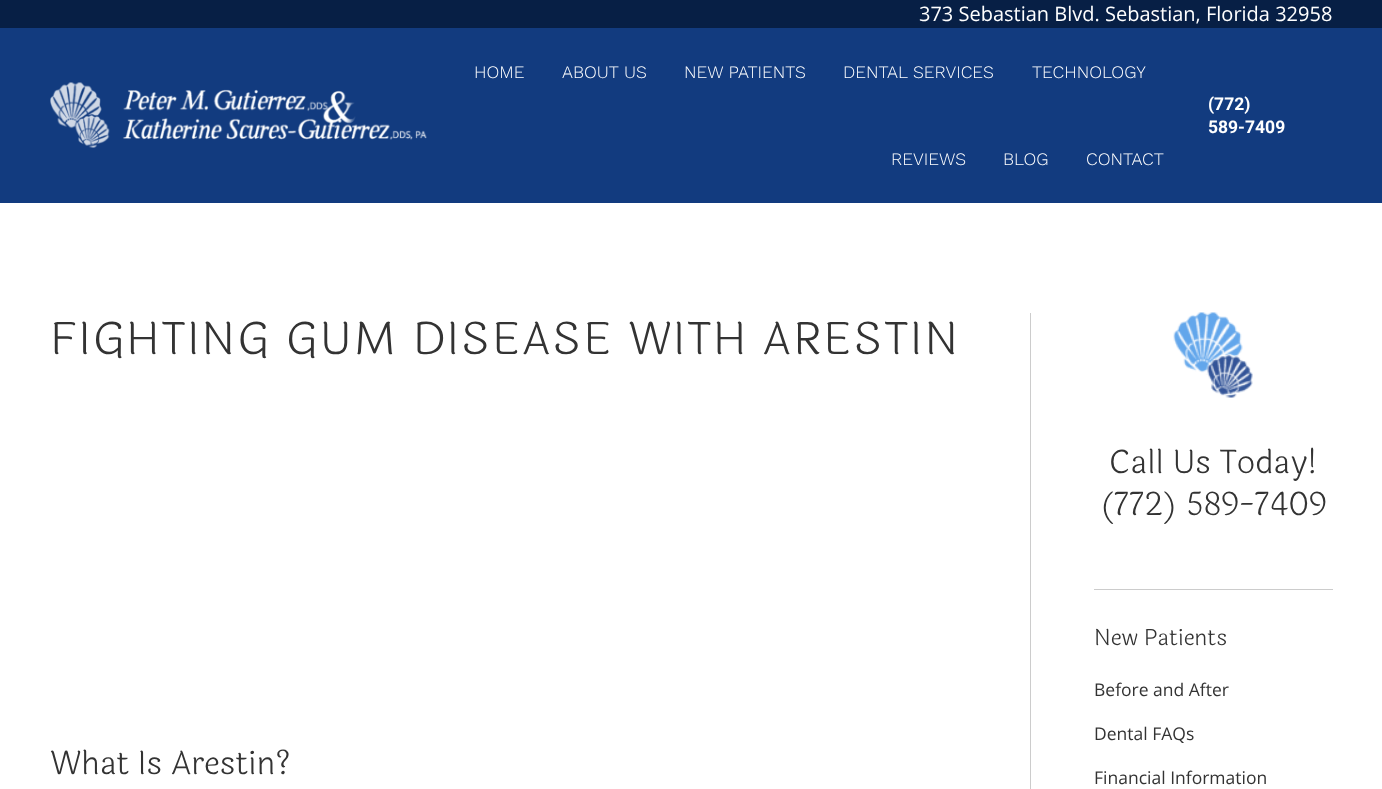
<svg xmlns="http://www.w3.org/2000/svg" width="1382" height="789">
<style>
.a{font:20px Open Sans;fill:#fff}
.b{font:300 17.5px Work Sans;fill:#fff}
.c{font:bold 17.5px Roboto;fill:#fff}
.d{font:300 45px Laila;letter-spacing:2.5px;fill:#333}
.e{font:300 32.5px Laila;fill:#333}
.f{font:300 22.5px Laila;fill:#333}
.g{font:17.5px Open Sans;fill:#333}
</style>
<rect width="100%" height="100%" fill="#fff"/>
<path fill="#123b7f" d="M0 28h1382v175H0z"/>
<path fill="#071f45" d="M0 0h1382v28H0z"/>
<image href="1.png" x="50" y="82" width="377" height="66"/>
<path fill="#ccc" d="M1030 313h1v476H1030z"/>
<image href="2.png" x="1173" y="312" width="80" height="86"/>
<path fill="#ccc" d="M1094 589h239v1H1094z"/>
<text class="a" x="919" y="21">373 Sebastian Blvd. Sebastian, Florida 32958</text>
<text class="b" x="474" y="78">HOME</text>
<text class="b" x="562" y="78">ABOUT US</text>
<text class="b" x="684" y="78">NEW PATIENTS</text>
<text class="b" x="843" y="78">DENTAL SERVICES</text>
<text class="b" x="1032" y="78">TECHNOLOGY</text>
<text class="b" x="891" y="165">REVIEWS</text>
<text class="b" x="1003" y="165">BLOG</text>
<text class="b" x="1086" y="165">CONTACT</text>
<text class="c" x="1208" y="110">(772)</text>
<text class="c" x="1208" y="133">589-7409</text>
<text class="d" x="50" y="354">FIGHTING GUM DISEASE WITH ARESTIN</text>
<text class="e" x="50" y="774">What Is Arestin?</text>
<text class="e" x="1109" y="473">Call Us Today!</text>
<text class="e" x="1100" y="515">(772) 589-7409</text>
<text class="f" x="1094" y="645">New Patients</text>
<text class="g" x="1094" y="696">Before and After</text>
<text class="g" x="1094" y="740">Dental FAQs</text>
<text class="g" x="1094" y="784">Financial Information</text>
</svg>
